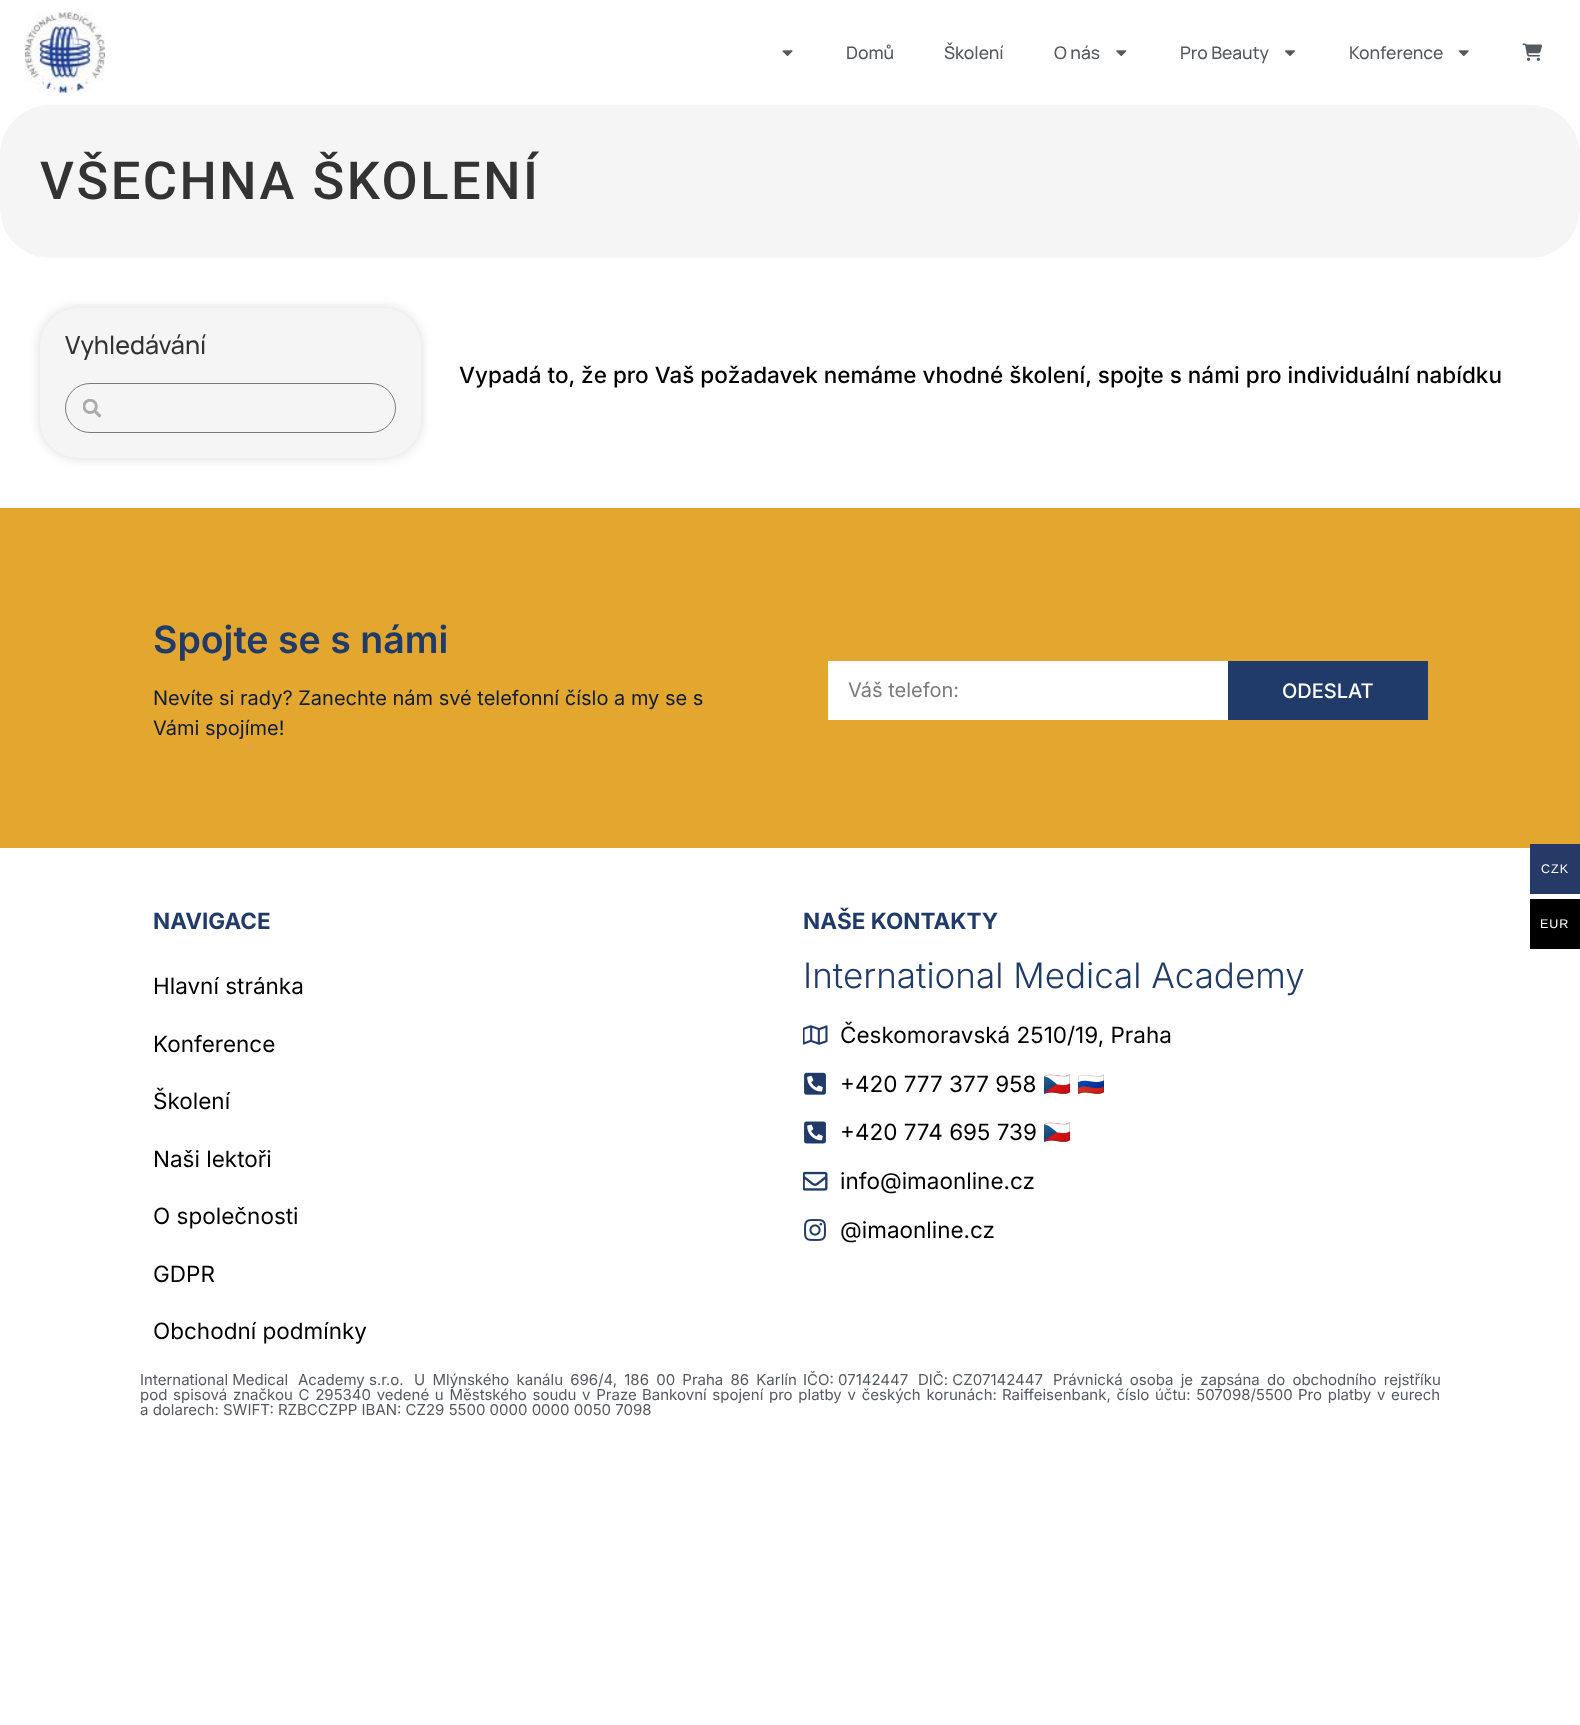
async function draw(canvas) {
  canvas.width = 1580;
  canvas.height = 1725;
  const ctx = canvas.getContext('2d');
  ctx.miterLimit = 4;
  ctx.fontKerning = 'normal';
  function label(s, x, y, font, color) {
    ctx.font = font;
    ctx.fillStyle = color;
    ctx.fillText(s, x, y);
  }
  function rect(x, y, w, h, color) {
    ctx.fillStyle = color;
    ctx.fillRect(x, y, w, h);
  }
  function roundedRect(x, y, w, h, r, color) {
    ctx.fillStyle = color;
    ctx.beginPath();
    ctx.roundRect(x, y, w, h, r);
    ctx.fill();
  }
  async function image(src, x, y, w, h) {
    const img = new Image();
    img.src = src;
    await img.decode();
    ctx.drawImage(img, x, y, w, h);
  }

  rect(0, 0, 1580, 1725, '#fff');
  await image('assets/img1.png', 25, 12, 80, 81);
  await image('assets/img2.png', 782, 50, 11, 6);
  label('Domů', 846, 59, '500 17.5px Manrope', '#54595f');
  label('Školení', 944, 59, '500 17.5px Manrope', '#54595f');
  label('O nás', 1054, 59, '500 17.5px Manrope', '#54595f');
  await image('assets/img3.png', 1116, 50, 11, 6);
  label('Pro Beauty', 1180, 59, '500 17.5px Manrope', '#54595f');
  await image('assets/img4.png', 1285, 50, 10, 6);
  label('Konference', 1349, 59, '500 17.5px Manrope', '#54595f');
  await image('assets/img5.png', 1458, 50, 11, 6);
  await image('assets/img6.png', 1522, 43, 20, 18);
  roundedRect(0, 105, 1580, 153, 50, '#f5f5f5');
  ctx.letterSpacing = '2.5px';
  label('VŠECHNA ŠKOLENÍ', 40, 199, '500 52.5px Roboto', '#333');
  ctx.fillStyle = '#00000026';
  ctx.filter = 'blur(6px)';
  ctx.beginPath();
  ctx.roundRect(40, 308, 381, 150, 38);
  ctx.fill();
  ctx.filter = 'none';
  roundedRect(40, 308, 381, 150, 38, '#f5f5f5');
  ctx.letterSpacing = '0px';
  label('Vyhledávání', 65, 354, '500 25px Manrope', '#333');
  ctx.beginPath();
  ctx.roundRect(65.5, 383.5, 330, 49, 24.5);
  ctx.strokeStyle = '#7a7a7a';
  ctx.stroke();
  await image('assets/img7.png', 83, 399, 18, 19);
  label('Vypadá to, že pro Vaš požadavek nemáme vhodné školení, spojte s námi pro individuální nabídku', 459, 383, '500 22.5px Inter', '#000');
  rect(0, 508, 1580, 340, '#e3a72f');
  label('Spojte se s námi', 153, 653, '600 37.5px Inter', '#203b6a');
  label('Nevíte si rady? Zanechte nám své telefonní číslo a my se s', 153, 705, '20px Inter', '#0e1b31');
  label('Vámi spojíme!', 153, 735, '20px Inter', '#0e1b31');
  rect(828, 661, 400, 59, '#fff');
  label('Váš telefon:', 848, 697, '20px Inter', '#797a7c');
  rect(1228, 661, 200, 59, '#203b6a');
  label('ODESLAT', 1282, 698, '500 20px Inter', '#fff');
  label('NAVIGACE', 153, 929, 'bold 22.5px Inter', '#203b6a');
  label('Hlavní stránka', 153, 994, '22.5px Inter', '#000');
  label('Konference', 153, 1052, '22.5px Inter', '#000');
  label('Školení', 153, 1109, '22.5px Inter', '#000');
  label('Naši lektoři', 153, 1167, '22.5px Inter', '#000');
  label('O společnosti', 153, 1224, '22.5px Inter', '#000');
  label('GDPR', 153, 1282, '22.5px Inter', '#000');
  label('Obchodní podmínky', 153, 1339, '22.5px Inter', '#000');
  label('NAŠE KONTAKTY', 803, 929, 'bold 22.5px Inter', '#203b6a');
  label('International Medical Academy', 803, 988, '300 35px Inter', '#203b6a');
  await image('assets/img8.png', 803, 1025, 25, 20);
  label('Českomoravská 2510/19, Praha', 840, 1043, '22.5px Inter', '#000');
  await image('assets/img9.png', 804, 1072, 22, 23);
  label('+420 777 377 958', 840, 1092, '22.5px Inter', '#000');
  label('🇨🇿', 1043, 1092, '22.5px Noto Color Emoji', '#000');
  label('🇷🇺', 1077, 1092, '22.5px Noto Color Emoji', '#000');
  await image('assets/img10.png', 804, 1121, 22, 23);
  label('+420 774 695 739', 840, 1140, '22.5px Inter', '#000');
  label('🇨🇿', 1043, 1140, '22.5px Noto Color Emoji', '#000');
  await image('assets/img11.png', 803, 1171, 25, 20);
  label('info@imaonline.cz', 840, 1189, '22.5px Inter', '#000');
  await image('assets/img12.png', 804, 1219, 22, 22);
  label('@imaonline.cz', 840, 1238, '22.5px Inter', '#000');
  label('International Medical', 140, 1385, '15px Inter', '#54595f');
  label('Academy s.r.o.', 298, 1385, '15px Inter', '#54595f');
  ctx.wordSpacing = '3px';
  label('U Mlýnského kanálu 696/4, 186 00 Praha 86 Karlín', 414, 1385, '15px Inter', '#54595f');
  ctx.wordSpacing = '0px';
  label('IČO: 07142447', 803, 1385, '15px Inter', '#54595f');
  label('DIČ: CZ07142447', 918, 1385, '15px Inter', '#54595f');
  ctx.wordSpacing = '3px';
  label('Právnická osoba je zapsána do obchodního rejstříku', 1053, 1385, '15px Inter', '#54595f');
  ctx.wordSpacing = '1.5px';
  label('pod spisová značkou C 295340 vedené u Městského soudu v Praze', 140, 1400, '15px Inter', '#54595f');
  label('Bankovní spojení pro platby v českých korunách:', 642, 1400, '15px Inter', '#54595f');
  label('Raiffeisenbank, číslo účtu: 507098/5500', 1002, 1400, '15px Inter', '#54595f');
  label('Pro platby v eurech', 1298, 1400, '15px Inter', '#54595f');
  ctx.wordSpacing = '0px';
  label('a dolarech: SWIFT: RZBCCZPP IBAN: CZ29 5500 0000 0000 0050 7098', 140, 1415, '15px Inter', '#54595f');
  rect(1530, 844, 50, 50, '#263a67');
  ctx.letterSpacing = '1px';
  label('CZK', 1541, 873, '12.5px Liberation Sans', '#fff');
  rect(1530, 899, 50, 50, '#000');
  label('EUR', 1540, 928, '12.5px Liberation Sans', '#fff');
}

draw(document.querySelector('canvas'));
